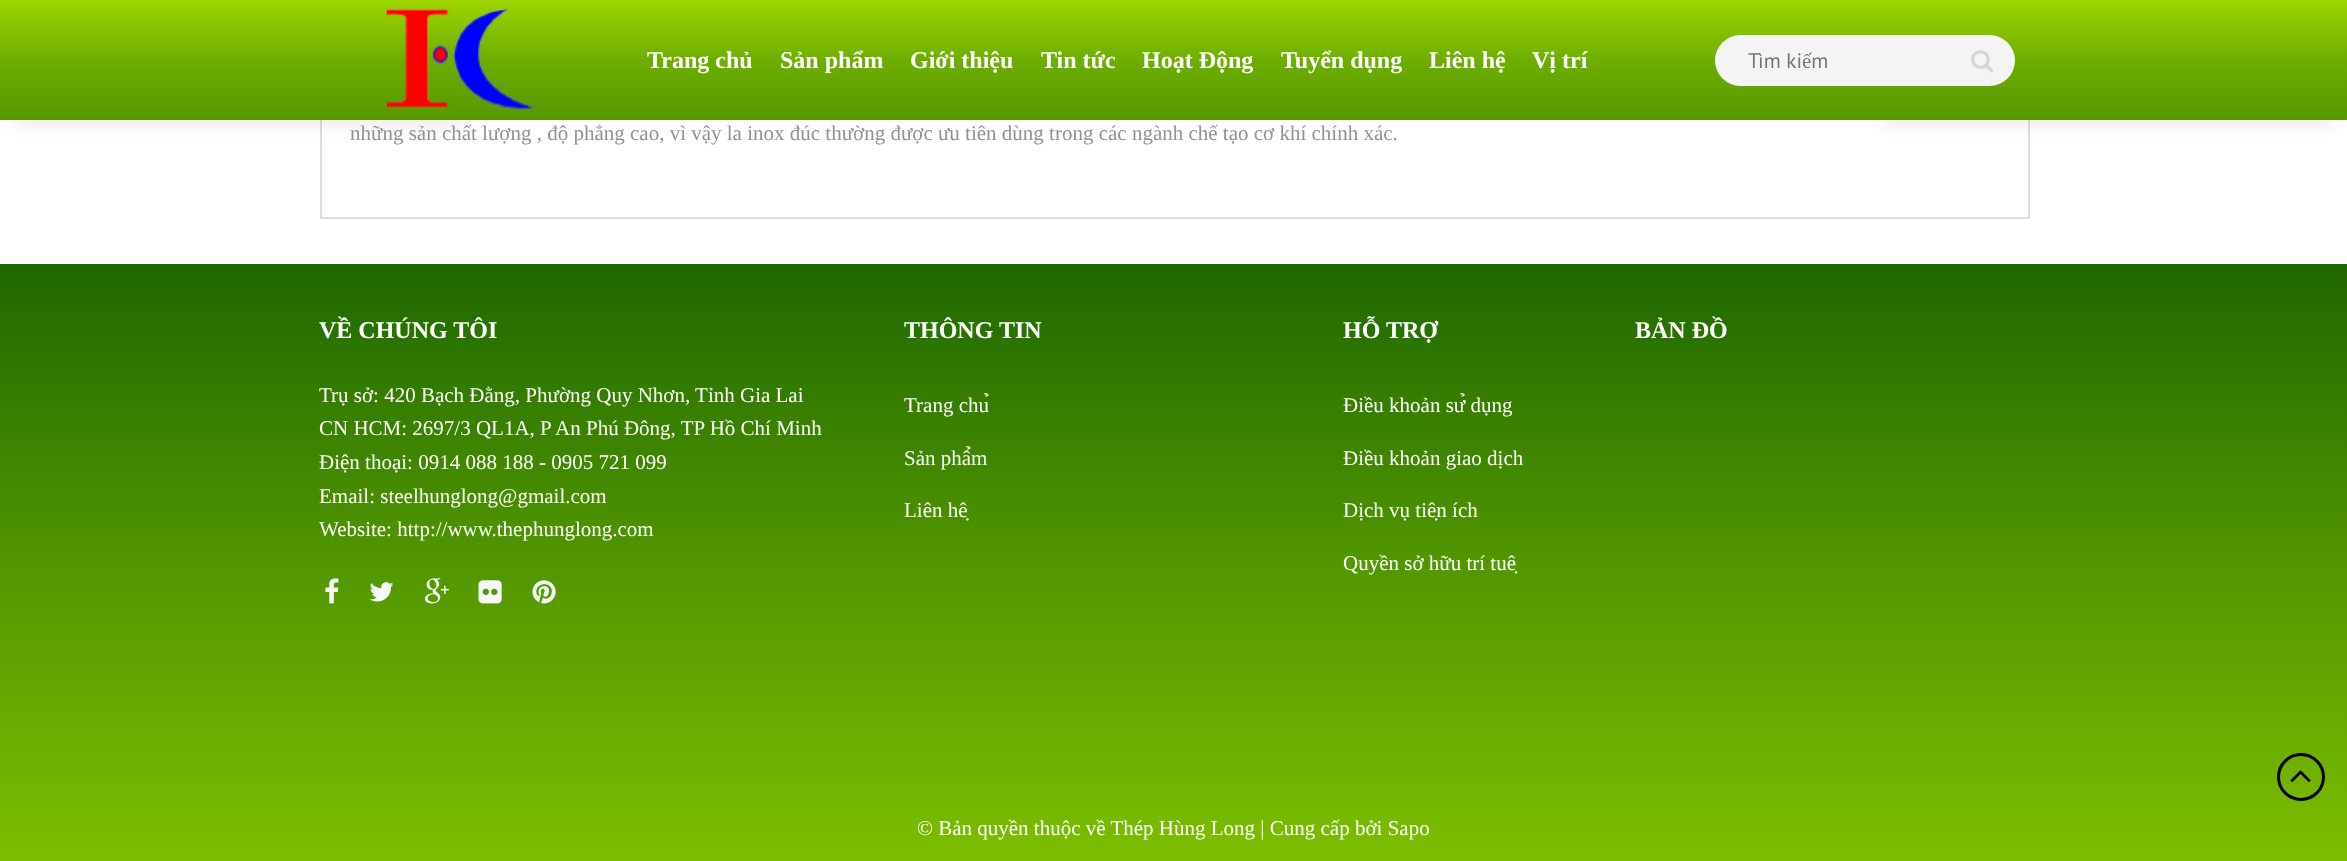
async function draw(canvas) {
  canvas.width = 2347;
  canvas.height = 861;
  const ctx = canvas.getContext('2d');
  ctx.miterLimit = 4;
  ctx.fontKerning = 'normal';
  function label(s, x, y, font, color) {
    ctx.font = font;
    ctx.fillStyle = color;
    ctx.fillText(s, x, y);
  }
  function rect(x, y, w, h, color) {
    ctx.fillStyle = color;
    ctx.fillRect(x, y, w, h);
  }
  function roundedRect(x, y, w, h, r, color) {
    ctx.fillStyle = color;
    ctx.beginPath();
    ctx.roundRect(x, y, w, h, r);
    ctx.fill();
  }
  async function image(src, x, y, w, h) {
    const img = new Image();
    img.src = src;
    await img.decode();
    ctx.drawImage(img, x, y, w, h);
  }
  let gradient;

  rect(0, 0, 2347, 861, '#fff');
  ctx.strokeStyle = '#ddd';
  ctx.lineWidth = 2;
  ctx.strokeRect(321, -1, 1708, 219);
  ctx.fillStyle = '#00000080';
  ctx.filter = 'blur(7.5px)';
  ctx.beginPath();
  ctx.rect(15, 119, 450, 2);
  ctx.fill();
  ctx.filter = 'none';
  ctx.filter = 'blur(7.5px)';
  ctx.beginPath();
  ctx.rect(1883, 119, 450, 2);
  ctx.fill();
  ctx.filter = 'none';
  gradient = ctx.createLinearGradient(1174, 0, 1174, 120);
  gradient.addColorStop(0, '#9ed500');
  gradient.addColorStop(0.5, '#6eae00');
  gradient.addColorStop(1, '#569800');
  ctx.fillStyle = gradient;
  ctx.fillRect(0, 0, 2347, 120);
  await image('assets/img1.png', 385, 8, 149, 103);
  label('Trang chủ', 647, 68, 'bold 24px Liberation Serif', '#fff');
  label('Sản phẩm', 780, 68, 'bold 24px Liberation Serif', '#fff');
  label('Giới thiệu', 910, 68, 'bold 24px Liberation Serif', '#fff');
  label('Tin tức', 1041, 68, 'bold 24px Liberation Serif', '#fff');
  label('Hoạt Động', 1142, 68, 'bold 24px Liberation Serif', '#fff');
  label('Tuyển dụng', 1281, 68, 'bold 24px Liberation Serif', '#fff');
  label('Liên hệ', 1429, 68, 'bold 24px Liberation Serif', '#fff');
  label('Vị trí', 1532, 68, 'bold 24px Liberation Serif', '#fff');
  roundedRect(1715, 35, 300, 51, 25.5, '#f4f4f4');
  label('Tìm kiếm', 1748, 68, '21px PT Sans', '#757575');
  await image('assets/img2.png', 1971, 50, 23, 23);
  label('những sản chất lượng , độ phẳng cao, vì vậy la inox đúc thường được ưu tiên dùng trong các ngành chế tạo cơ khí chính xác.', 350, 140, '21px Liberation Serif', '#929292');
  gradient = ctx.createLinearGradient(1174, 264, 1174, 861);
  gradient.addColorStop(0, '#1e6700');
  gradient.addColorStop(0.5, '#529601');
  gradient.addColorStop(1, '#7dbe00');
  ctx.fillStyle = gradient;
  ctx.fillRect(0, 264, 2347, 597);
  label('VỀ CHÚNG TÔI', 319, 338, 'bold 24px Liberation Serif', '#fff');
  label('Trụ sở: 420 Bạch Đằng, Phường Quy Nhơn, Tỉnh Gia Lai', 319, 402, '21px Liberation Serif', '#fff');
  label('CN HCM: 2697/3 QL1A, P An Phú Đông, TP Hồ Chí Minh', 319, 435, '21px Liberation Serif', '#fff');
  label('Điện thoại: 0914 088 188 - 0905 721 099', 319, 469, '21px Liberation Serif', '#fff');
  label('Email: steelhunglong@gmail.com', 319, 503, '21px Liberation Serif', '#fff');
  label('Website: http://www.thephunglong.com', 319, 536, '21px Liberation Serif', '#fff');
  await image('assets/img3.png', 325, 578, 14, 26);
  await image('assets/img4.png', 369, 582, 25, 20);
  await image('assets/img5.png', 425, 578, 24, 26);
  await image('assets/img6.png', 478, 580, 24, 24);
  await image('assets/img7.png', 532, 580, 24, 24);
  label('THÔNG TIN', 904, 338, 'bold 24px Liberation Serif', '#fff');
  label('Trang chủ', 904, 412, '21px Liberation Serif', '#fff');
  label('Sản phẩm', 904, 465, '21px Liberation Serif', '#fff');
  label('Liên hệ', 904, 517, '21px Liberation Serif', '#fff');
  label('HỖ TRỢ', 1343, 338, 'bold 24px Liberation Serif', '#fff');
  label('Điều khoản sử dụng', 1343, 412, '21px Liberation Serif', '#fff');
  label('Điều khoản giao dịch', 1343, 465, '21px Liberation Serif', '#fff');
  label('Dịch vụ tiện ích', 1343, 517, '21px Liberation Serif', '#fff');
  label('Quyền sở hữu trí tuệ', 1343, 570, '21px Liberation Serif', '#fff');
  label('BẢN ĐỒ', 1635, 338, 'bold 24px Liberation Serif', '#fff');
  label('© Bản quyền thuộc về Thép Hùng Long | Cung cấp bởi Sapo', 917, 835, '21px Liberation Serif', '#fff');
  ctx.beginPath();
  ctx.arc(2301, 777, 22.5, 0, 2 * Math.PI);
  ctx.strokeStyle = '#000';
  ctx.lineWidth = 3;
  ctx.stroke();
  await image('assets/img8.png', 2290, 770, 21, 12);
}

draw(document.querySelector('canvas'));
